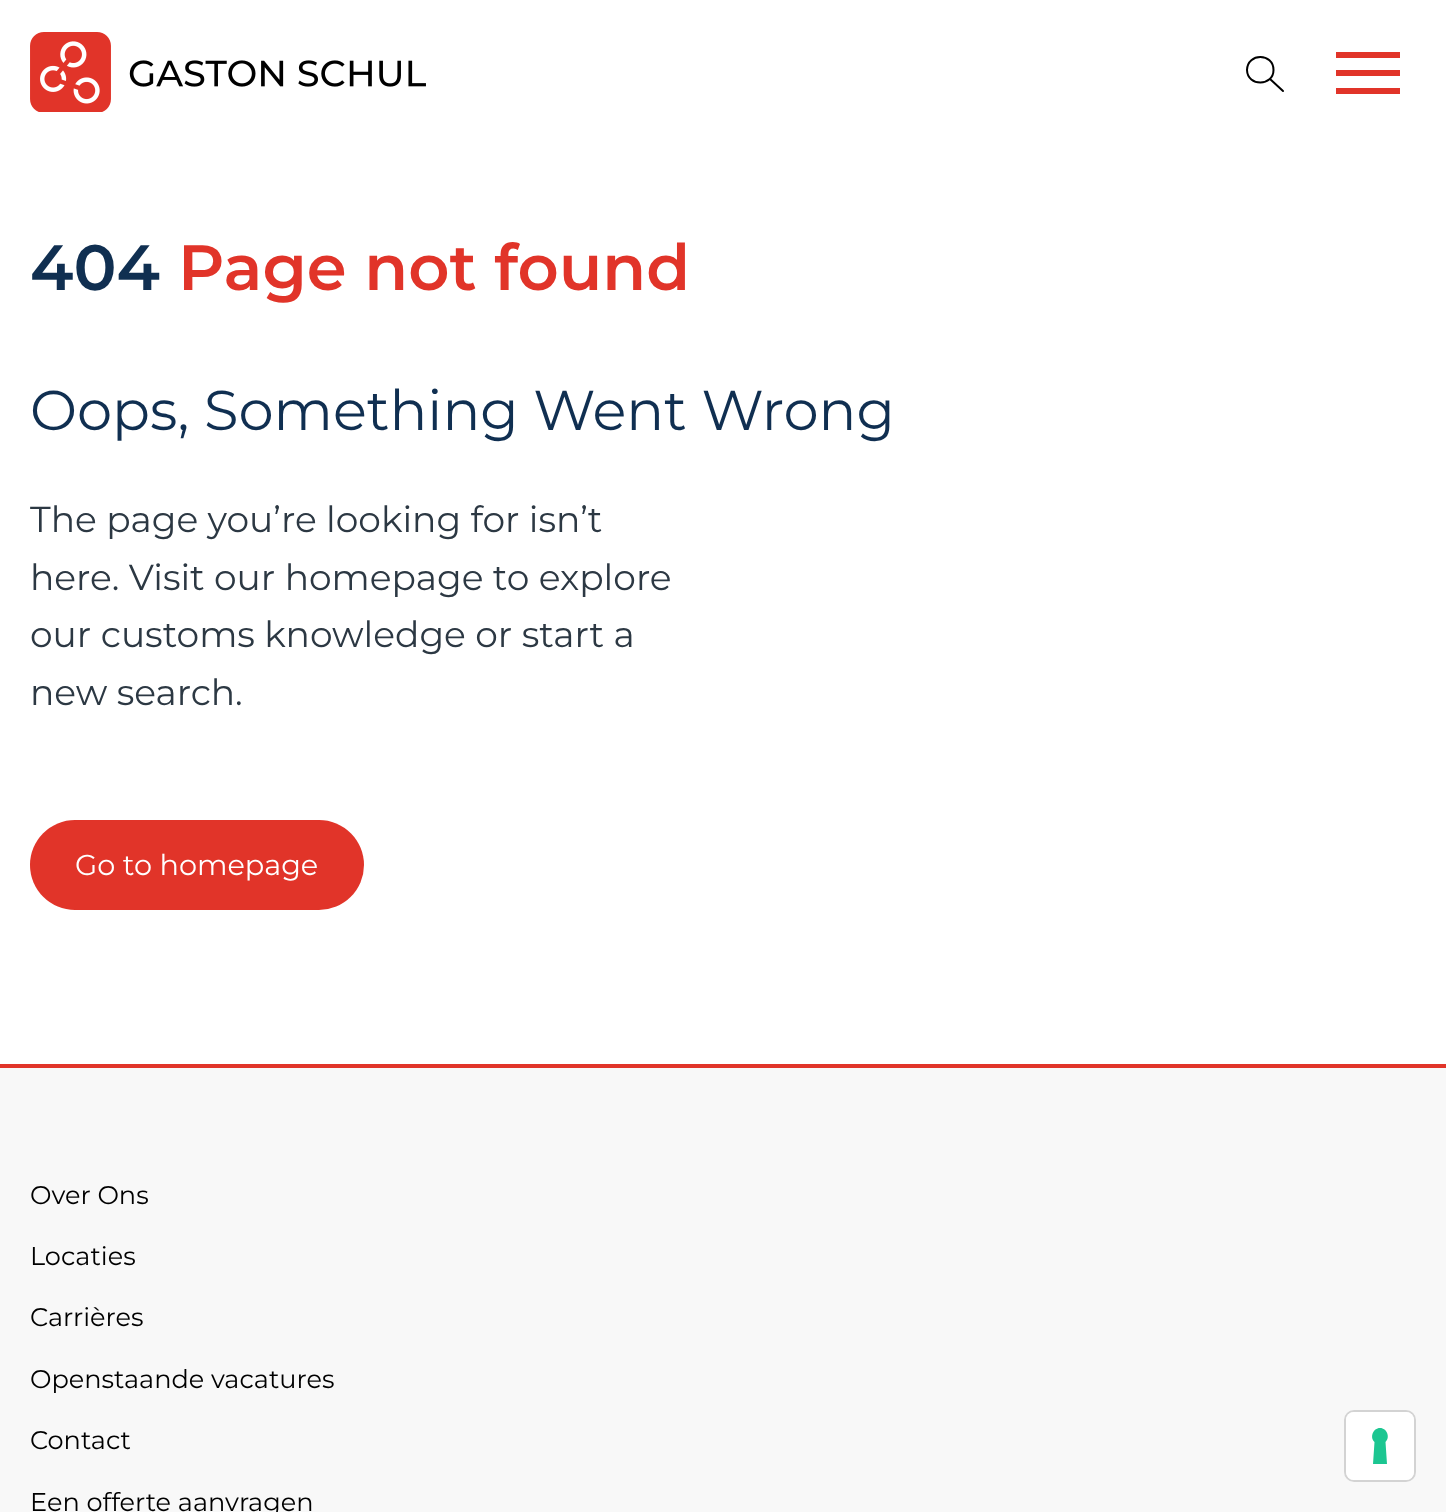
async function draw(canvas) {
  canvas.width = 1446;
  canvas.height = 1512;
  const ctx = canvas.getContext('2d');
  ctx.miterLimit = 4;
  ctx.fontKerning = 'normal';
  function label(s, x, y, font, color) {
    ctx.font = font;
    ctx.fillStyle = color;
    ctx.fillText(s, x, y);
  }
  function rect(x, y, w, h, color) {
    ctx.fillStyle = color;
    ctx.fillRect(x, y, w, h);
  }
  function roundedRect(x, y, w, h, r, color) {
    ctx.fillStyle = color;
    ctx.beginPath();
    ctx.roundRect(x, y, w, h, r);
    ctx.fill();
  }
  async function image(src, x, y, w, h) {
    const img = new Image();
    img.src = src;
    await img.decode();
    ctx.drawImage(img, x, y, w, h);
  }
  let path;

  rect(0, 0, 1446, 1512, '#fff');
  await image('assets/img1.png', 30, 32, 396, 80);
  path = new Path2D('M1270 79L1283 91ZM1247 70C1247.5 52.5 1273.5 53 1273.5 70C1273.5 86.5 1247.5 87 1247 70Z');
  ctx.strokeStyle = '#000';
  ctx.lineWidth = 2;
  ctx.lineCap = 'round';
  ctx.lineJoin = 'round';
  ctx.stroke(path);
  rect(1336, 52, 64, 6, '#e13429');
  rect(1336, 70, 64, 6, '#e13429');
  rect(1336, 88, 64, 6, '#e13429');
  label('404', 30, 290, '600 64px Montserrat', '#102f51');
  label('Page not found', 178, 290, '600 64px Montserrat', '#e13429');
  label('Oops, Something Went Wrong', 30, 430, '56px Montserrat', '#102f51');
  label('The page you’re looking for isn’t', 30, 532, '36px Montserrat', '#2c3843');
  label('here. Visit our homepage to explore', 30, 590, '36px Montserrat', '#2c3843');
  label('our customs knowledge or start a', 30, 647, '36px Montserrat', '#2c3843');
  label('new search.', 30, 705, '36px Montserrat', '#2c3843');
  roundedRect(30, 820, 334, 90, 45, '#e13429');
  label('Go to homepage', 75, 875, '28.75px Montserrat', '#fff');
  rect(0, 1064, 1446, 4, '#e13429');
  rect(0, 1068, 1446, 444, '#f8f8f8');
  label('Over Ons', 30, 1204, '25.6px Montserrat', '#000');
  label('Locaties', 30, 1265, '25.6px Montserrat', '#000');
  label('Carrières', 30, 1326, '25.6px Montserrat', '#000');
  label('Openstaande vacatures', 30, 1388, '25.6px Montserrat', '#000');
  label('Contact', 30, 1449, '25.6px Montserrat', '#000');
  label('Een offerte aanvragen', 30, 1511, '25.6px Montserrat', '#000');
  ctx.beginPath();
  ctx.roundRect(1345, 1411, 70, 70, 9);
  ctx.strokeStyle = '#d3d3d3';
  ctx.lineJoin = 'miter';
  ctx.stroke();
  roundedRect(1346, 1412, 68, 68, 8, '#fff');
  ctx.fillStyle = '#1cc691';
  path = new Path2D('M1380 1428C1387 1428 1390.5 1437.5 1385.5 1442L1387 1464H1373L1374.5 1442C1369.5 1437.5 1373 1428 1380 1428Z');
  ctx.fill(path, 'evenodd');
}

draw(document.querySelector('canvas'));
